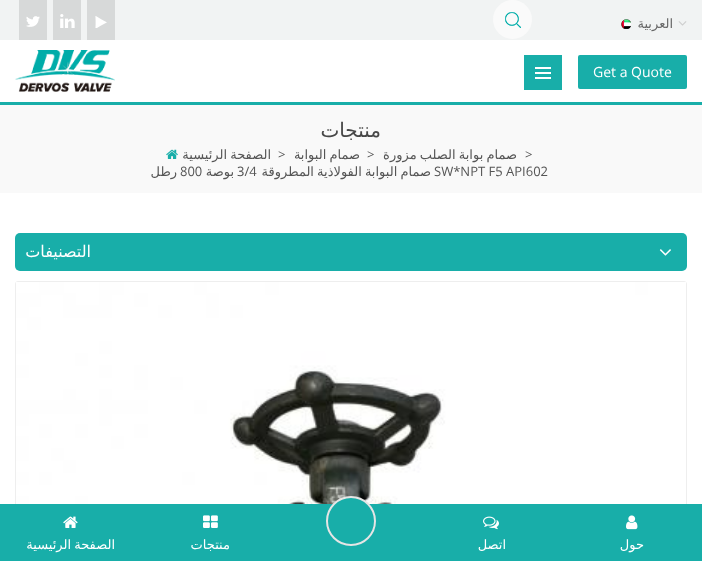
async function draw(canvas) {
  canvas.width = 702;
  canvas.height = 561;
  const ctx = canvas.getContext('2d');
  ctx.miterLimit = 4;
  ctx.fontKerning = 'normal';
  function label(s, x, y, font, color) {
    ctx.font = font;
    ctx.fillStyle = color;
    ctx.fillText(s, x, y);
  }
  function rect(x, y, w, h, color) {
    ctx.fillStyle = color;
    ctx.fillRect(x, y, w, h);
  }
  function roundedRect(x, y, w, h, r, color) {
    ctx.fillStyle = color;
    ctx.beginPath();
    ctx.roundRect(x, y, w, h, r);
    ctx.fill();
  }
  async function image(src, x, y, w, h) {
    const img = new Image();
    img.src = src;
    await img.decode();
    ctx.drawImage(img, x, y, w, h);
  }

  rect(0, 0, 702, 561, '#fff');
  rect(0, 0, 702, 40, '#f1f3f3');
  await image('assets/img1.png', 678, 21, 9, 5);
  ctx.direction = 'rtl';
  label('العربية', 673, 28, '13px DejaVu Sans', '#666');
  await image('assets/img2.png', 621, 19, 10, 10);
  ctx.fillStyle = '#fafafa';
  ctx.beginPath();
  ctx.arc(512.5, 19.5, 19.5, 0, 2 * Math.PI);
  ctx.fill();
  await image('assets/img3.png', 505, 12, 16, 16);
  rect(87, 0, 28, 40, '#d7d9d9');
  await image('assets/img4.png', 95, 16, 12, 12);
  rect(53, 0, 28, 40, '#d7d9d9');
  await image('assets/img5.png', 60, 14, 15, 14);
  rect(19, 0, 28, 40, '#d7d9d9');
  await image('assets/img6.png', 26, 16, 14, 11);
  rect(0, 102, 702, 3, '#18aea9');
  roundedRect(578, 55, 109, 34, 2, '#18aea9');
  ctx.direction = 'ltr';
  label('Get a Quote', 593, 77, '14px Open Sans', '#fff');
  rect(524, 55, 38, 35, '#18aea9');
  rect(535, 67, 16, 2, '#fff');
  rect(535, 72, 16, 2, '#fff');
  rect(535, 77, 16, 2, '#fff');
  await image('assets/img7.png', 15, 50, 100, 42);
  rect(0, 105, 702, 88, '#f9f9f9');
  ctx.direction = 'rtl';
  label('منتجات', 381, 137, '20px DejaVu Sans', '#474747');
  ctx.direction = 'ltr';
  label('>', 525, 159, '13px Open Sans', '#555');
  ctx.wordSpacing = '-1px';
  ctx.direction = 'rtl';
  label('صمام بوابة الصلب مزورة', 517, 159, '13px DejaVu Sans', '#555');
  ctx.wordSpacing = '0px';
  ctx.direction = 'ltr';
  label('>', 367, 159, '13px Open Sans', '#555');
  ctx.wordSpacing = '-1px';
  ctx.direction = 'rtl';
  label('صمام البوابة', 360, 159, '13px DejaVu Sans', '#555');
  ctx.wordSpacing = '0px';
  ctx.direction = 'ltr';
  label('>', 278, 159, '13px Open Sans', '#555');
  ctx.wordSpacing = '-1px';
  ctx.direction = 'rtl';
  label('الصفحة الرئيسية', 271, 159, '13px DejaVu Sans', '#555');
  await image('assets/img8.png', 166, 149, 12, 10);
  ctx.wordSpacing = '0px';
  ctx.direction = 'ltr';
  label('SW*NPT F5 API602', 434, 176, '13px Open Sans', '#555');
  ctx.wordSpacing = '-1px';
  ctx.direction = 'rtl';
  label('صمام البوابة الفولاذية المطروقة', 431, 176, '13px DejaVu Sans', '#555');
  ctx.wordSpacing = '0px';
  ctx.direction = 'ltr';
  label('3/4', 237, 176, '13px Open Sans', '#555');
  ctx.direction = 'rtl';
  label('بوصة', 234, 176, '13px DejaVu Sans', '#555');
  ctx.direction = 'ltr';
  label('800', 180, 176, '13px Open Sans', '#555');
  ctx.direction = 'rtl';
  label('رطل', 177, 176, '13px DejaVu Sans', '#555');
  roundedRect(15, 233, 672, 38, 5, '#18aea9');
  await image('assets/img9.png', 659, 249, 12, 7);
  label('التصنيفات', 91, 257, '16px DejaVu Sans', '#fff');
  ctx.beginPath();
  ctx.roundRect(15.5, 281.5, 671, 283, 2.5);
  ctx.strokeStyle = '#eee';
  ctx.stroke();
  await image('assets/img10.png', 16, 282, 670, 222);
  rect(0, 504, 702, 57, '#18aea9');
  ctx.beginPath();
  ctx.arc(351, 521, 24, 0, 2 * Math.PI);
  ctx.fill();
  ctx.strokeStyle = '#e5e5e5';
  ctx.lineWidth = 2;
  ctx.stroke();
  await image('assets/img11.png', 626, 515, 12, 15);
  label('حول', 644, 549, '13px DejaVu Sans', '#fff');
  await image('assets/img12.png', 483, 516, 16, 14);
  label('اتصل', 506, 549, '13px DejaVu Sans', '#fff');
  await image('assets/img13.png', 203, 515, 15, 13);
  label('منتجات', 230, 549, '13px DejaVu Sans', '#fff');
  await image('assets/img14.png', 63, 516, 15, 12);
  ctx.wordSpacing = '-1px';
  label('الصفحة الرئيسية', 115, 549, '13px DejaVu Sans', '#fff');
}

draw(document.querySelector('canvas'));
